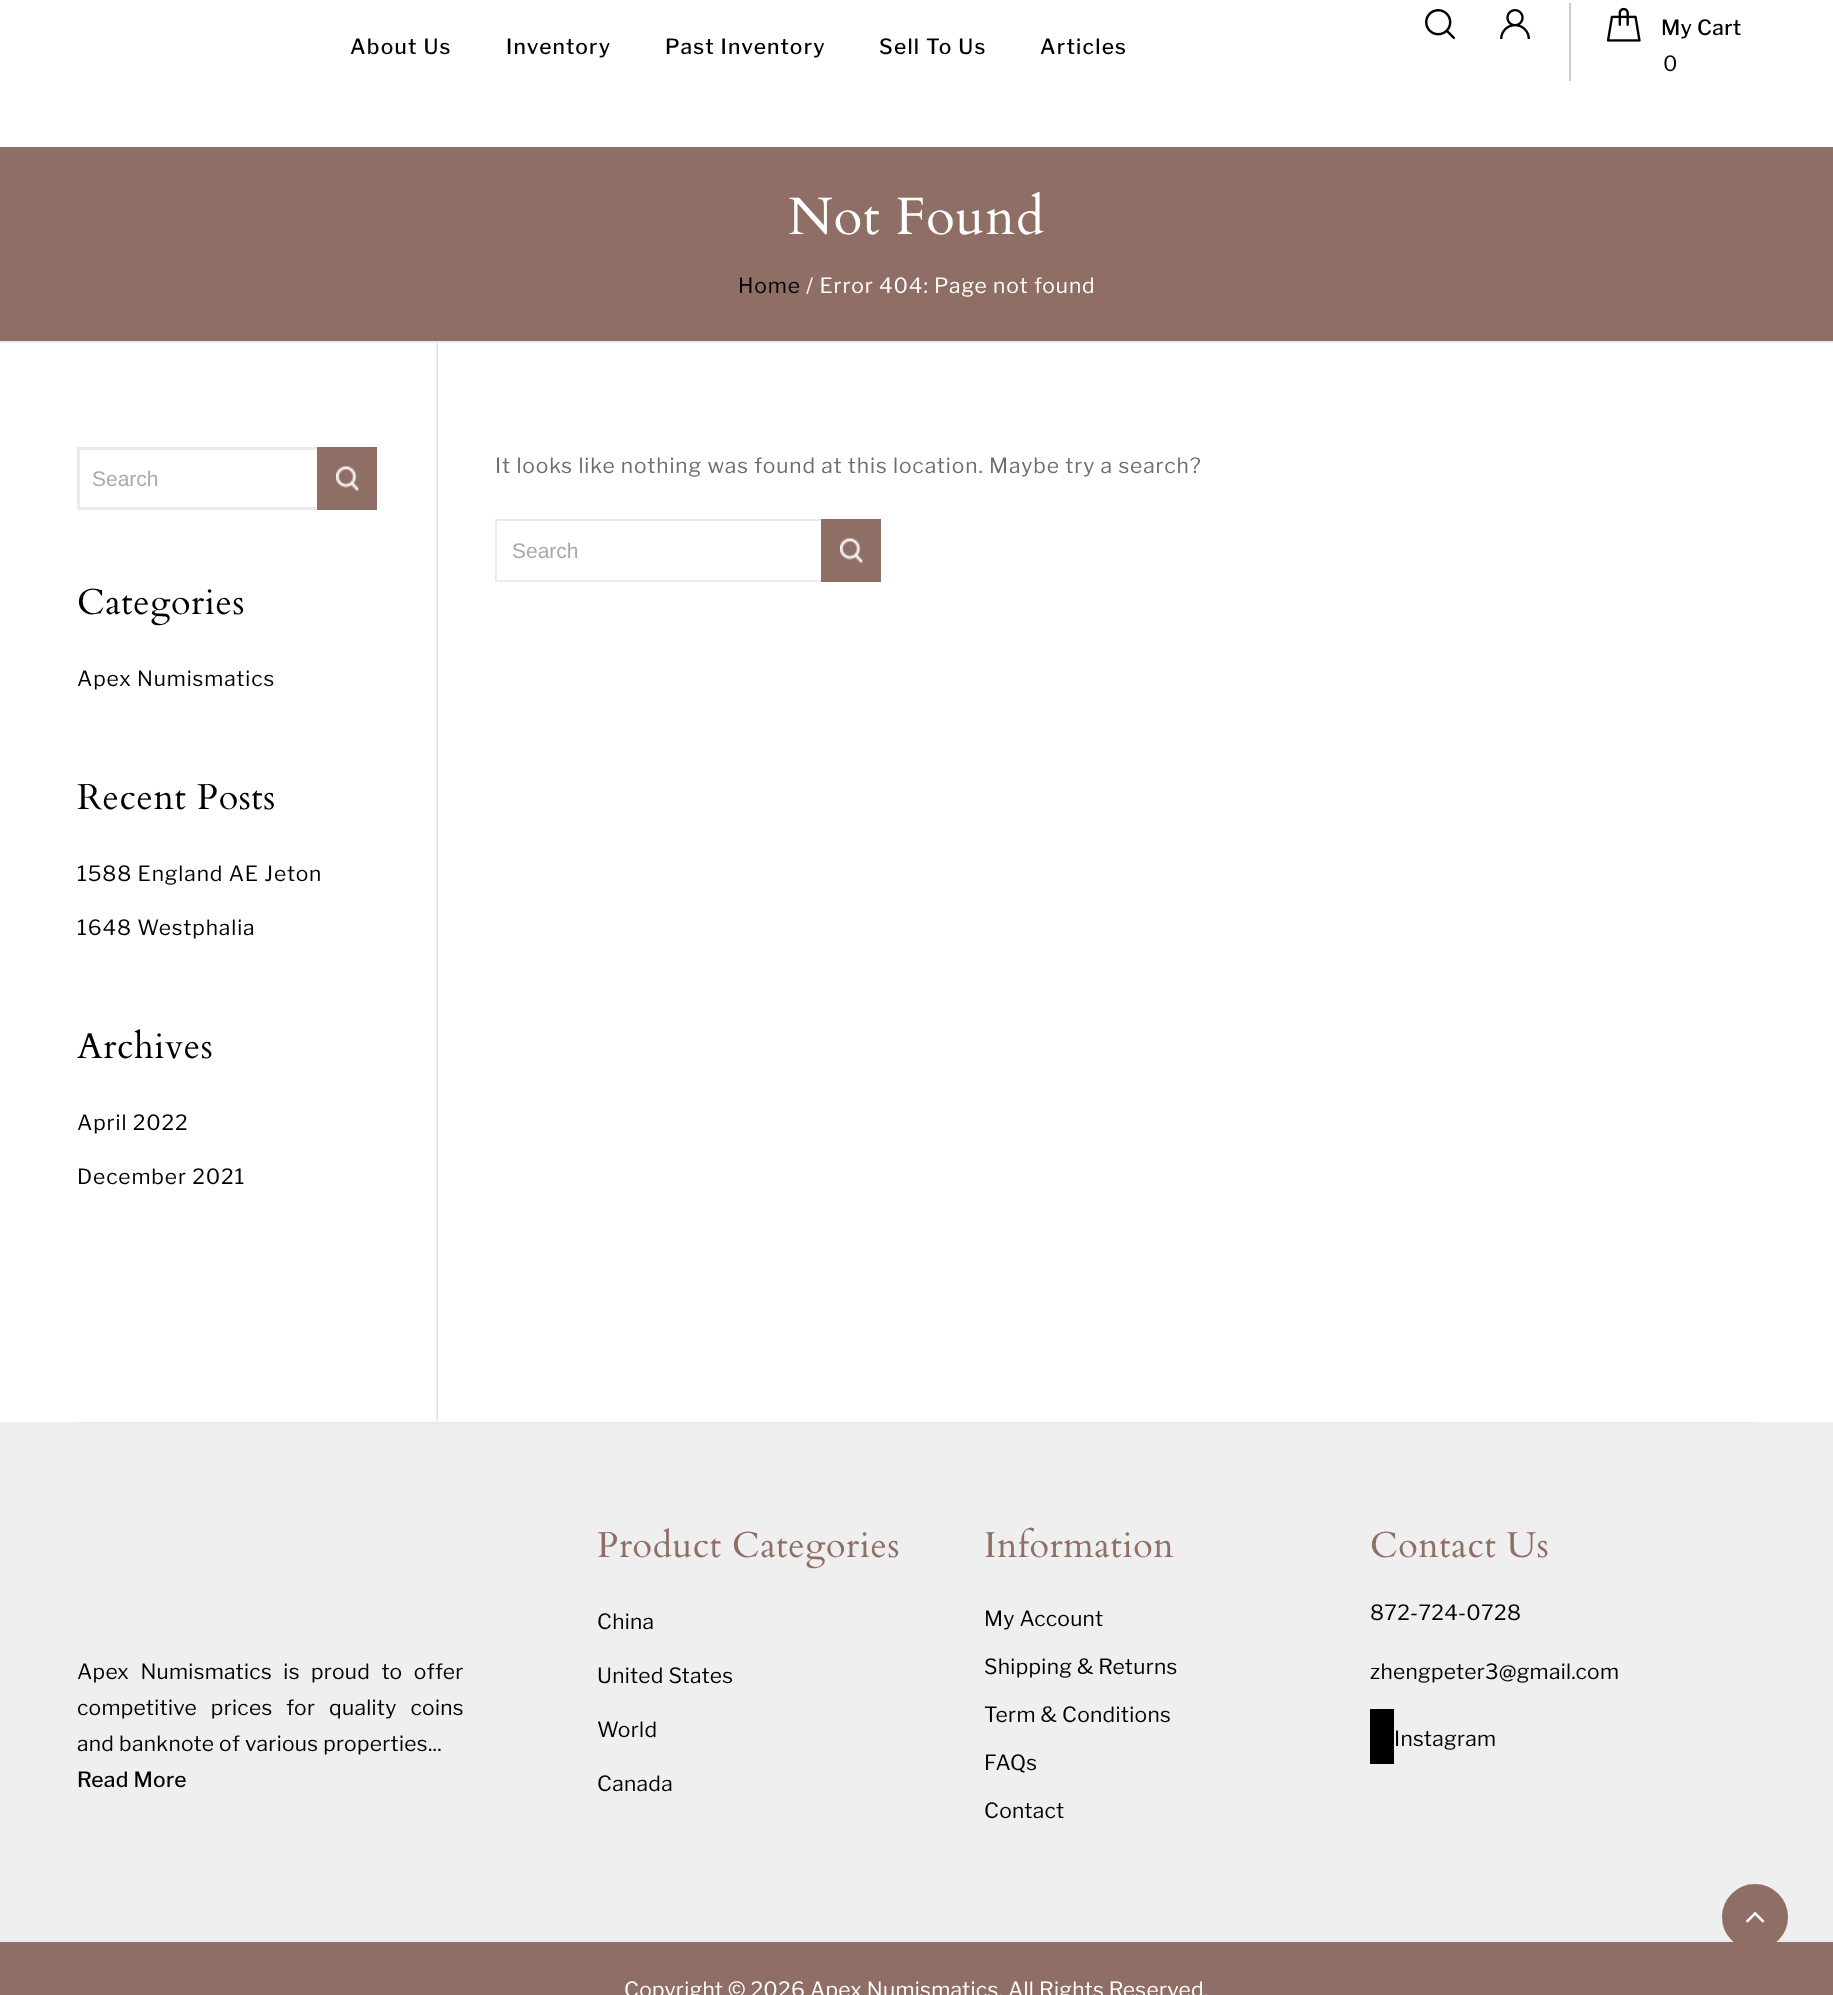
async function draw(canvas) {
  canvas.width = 1833;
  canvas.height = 1995;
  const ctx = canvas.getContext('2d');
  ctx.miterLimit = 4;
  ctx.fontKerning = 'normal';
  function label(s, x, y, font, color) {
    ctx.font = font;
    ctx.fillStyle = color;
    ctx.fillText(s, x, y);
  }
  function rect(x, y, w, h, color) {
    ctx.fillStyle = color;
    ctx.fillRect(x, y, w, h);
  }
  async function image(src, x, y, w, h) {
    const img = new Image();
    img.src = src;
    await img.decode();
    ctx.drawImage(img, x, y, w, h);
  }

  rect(0, 0, 1833, 1995, '#fff');
  ctx.letterSpacing = '1.25px';
  label('About Us', 350, 54, '500 21px Libre Franklin', '#000');
  label('Inventory', 506, 54, '500 21px Libre Franklin', '#000');
  label('Past Inventory', 665, 54, '500 21px Libre Franklin', '#000');
  label('Sell To Us', 879, 54, '500 21px Libre Franklin', '#000');
  label('Articles', 1040, 54, '500 21px Libre Franklin', '#000');
  await image('assets/img1.png', 1425, 9, 30, 30);
  await image('assets/img2.png', 1500, 9, 30, 30);
  rect(1569, 3, 2, 78, '#ccc');
  await image('assets/img3.png', 1606, 7, 35, 35);
  ctx.letterSpacing = '0.3px';
  label('My Cart', 1661, 35, '500 21px Libre Franklin', '#000');
  ctx.letterSpacing = '0.9px';
  label('0', 1663, 71, '100 21px Libre Franklin', '#000');
  rect(0, 147, 1833, 194, '#8e6e65');
  rect(0, 341, 1833, 2, '#ebebeb');
  label('Not Found', 788, 234, '52.5px Cardo', '#fff');
  label('Home', 738, 293, '100 21px Libre Franklin', '#000');
  label('/ Error 404: Page not found', 806, 293, '100 21px Libre Franklin', '#fff');
  await image('assets/img4.png', 436, 342, 2, 1080);
  ctx.strokeStyle = '#ebebeb';
  ctx.lineWidth = 3;
  ctx.strokeRect(78.5, 448.5, 255, 60);
  ctx.letterSpacing = '0px';
  label('Search', 92, 486, '21px Liberation Sans', '#aaa');
  rect(317, 447, 60, 63, '#8e6e65');
  await image('assets/img5.png', 336, 466, 23, 25);
  ctx.letterSpacing = '0.6px';
  label('Categories', 77, 614, '36px Cardo', '#000');
  ctx.letterSpacing = '0.9px';
  label('Apex Numismatics', 77, 686, '100 21px Libre Franklin', '#000');
  ctx.letterSpacing = '0.6px';
  label('Recent Posts', 77, 809, '36px Cardo', '#000');
  ctx.letterSpacing = '0.9px';
  label('1588 England AE Jeton', 77, 881, '100 21px Libre Franklin', '#000');
  label('1648 Westphalia', 77, 935, '100 21px Libre Franklin', '#000');
  ctx.letterSpacing = '0.6px';
  label('Archives', 77, 1058, '36px Cardo', '#000');
  ctx.letterSpacing = '0.9px';
  label('April 2022', 77, 1130, '100 21px Libre Franklin', '#000');
  label('December 2021', 77, 1184, '100 21px Libre Franklin', '#000');
  label('It looks like nothing was found at this location. Maybe try a search?', 495, 473, '100 21px Libre Franklin', '#6e6e6e');
  ctx.lineWidth = 2;
  ctx.strokeRect(496, 520, 327, 61);
  ctx.letterSpacing = '0px';
  label('Search', 512, 558, '21px Liberation Sans', '#aaa');
  rect(821, 519, 60, 63, '#8e6e65');
  await image('assets/img6.png', 840, 538, 23, 25);
  rect(0, 1422, 1833, 518, '#efefef');
  rect(77, 1422, 1680, 2, '#ebebeb');
  ctx.letterSpacing = '0.3px';
  ctx.wordSpacing = '6.5px';
  label('Apex Numismatics is proud to offer', 77, 1679, '100 21px Libre Franklin', '#000');
  ctx.wordSpacing = '9px';
  label('competitive prices for quality coins', 77, 1715, '100 21px Libre Franklin', '#000');
  ctx.wordSpacing = '0px';
  label('and banknote of various properties...', 77, 1751, '100 21px Libre Franklin', '#000');
  label('Read More', 77, 1787, '500 21px Libre Franklin', '#000');
  ctx.letterSpacing = '0.6px';
  label('Product Categories', 597, 1557, '36px Cardo', '#8e6e65');
  ctx.letterSpacing = '0.3px';
  label('China', 597, 1629, '100 21px Libre Franklin', '#000');
  label('United States', 597, 1683, '100 21px Libre Franklin', '#000');
  label('World', 597, 1737, '100 21px Libre Franklin', '#000');
  label('Canada', 597, 1791, '100 21px Libre Franklin', '#000');
  ctx.letterSpacing = '0.6px';
  label('Information', 984, 1557, '36px Cardo', '#8e6e65');
  ctx.letterSpacing = '0.3px';
  label('My Account', 984, 1626, '100 21px Libre Franklin', '#000');
  label('Shipping & Returns', 984, 1674, '100 21px Libre Franklin', '#000');
  label('Term & Conditions', 984, 1722, '100 21px Libre Franklin', '#000');
  label('FAQs', 984, 1770, '100 21px Libre Franklin', '#000');
  label('Contact', 984, 1818, '100 21px Libre Franklin', '#000');
  ctx.letterSpacing = '0.6px';
  label('Contact Us', 1370, 1557, '36px Cardo', '#8e6e65');
  ctx.letterSpacing = '0.3px';
  label('872-724-0728', 1370, 1620, '100 21px Libre Franklin', '#000');
  label('zhengpeter3@gmail.com', 1370, 1679, '100 21px Libre Franklin', '#000');
  label('Instagram', 1394, 1746, '100 21px Libre Franklin', '#000');
  rect(1370, 1709, 24, 55, '#000');
  rect(0, 1942, 1833, 53, '#8e6e65');
  rect(0, 1940, 1833, 2, '#ebebeb');
  label('Copyright © 2026 Apex Numismatics. All Rights Reserved.', 624, 1997, '100 21px Libre Franklin', '#fff');
  ctx.fillStyle = '#8e6e65';
  ctx.beginPath();
  ctx.arc(1755, 1917, 31.5, 0, 2 * Math.PI);
  ctx.fill();
  ctx.strokeStyle = '#8e6e65';
  ctx.lineWidth = 3;
  ctx.stroke();
  await image('assets/img7.png', 1746, 1911, 19, 12);
}

draw(document.querySelector('canvas'));
